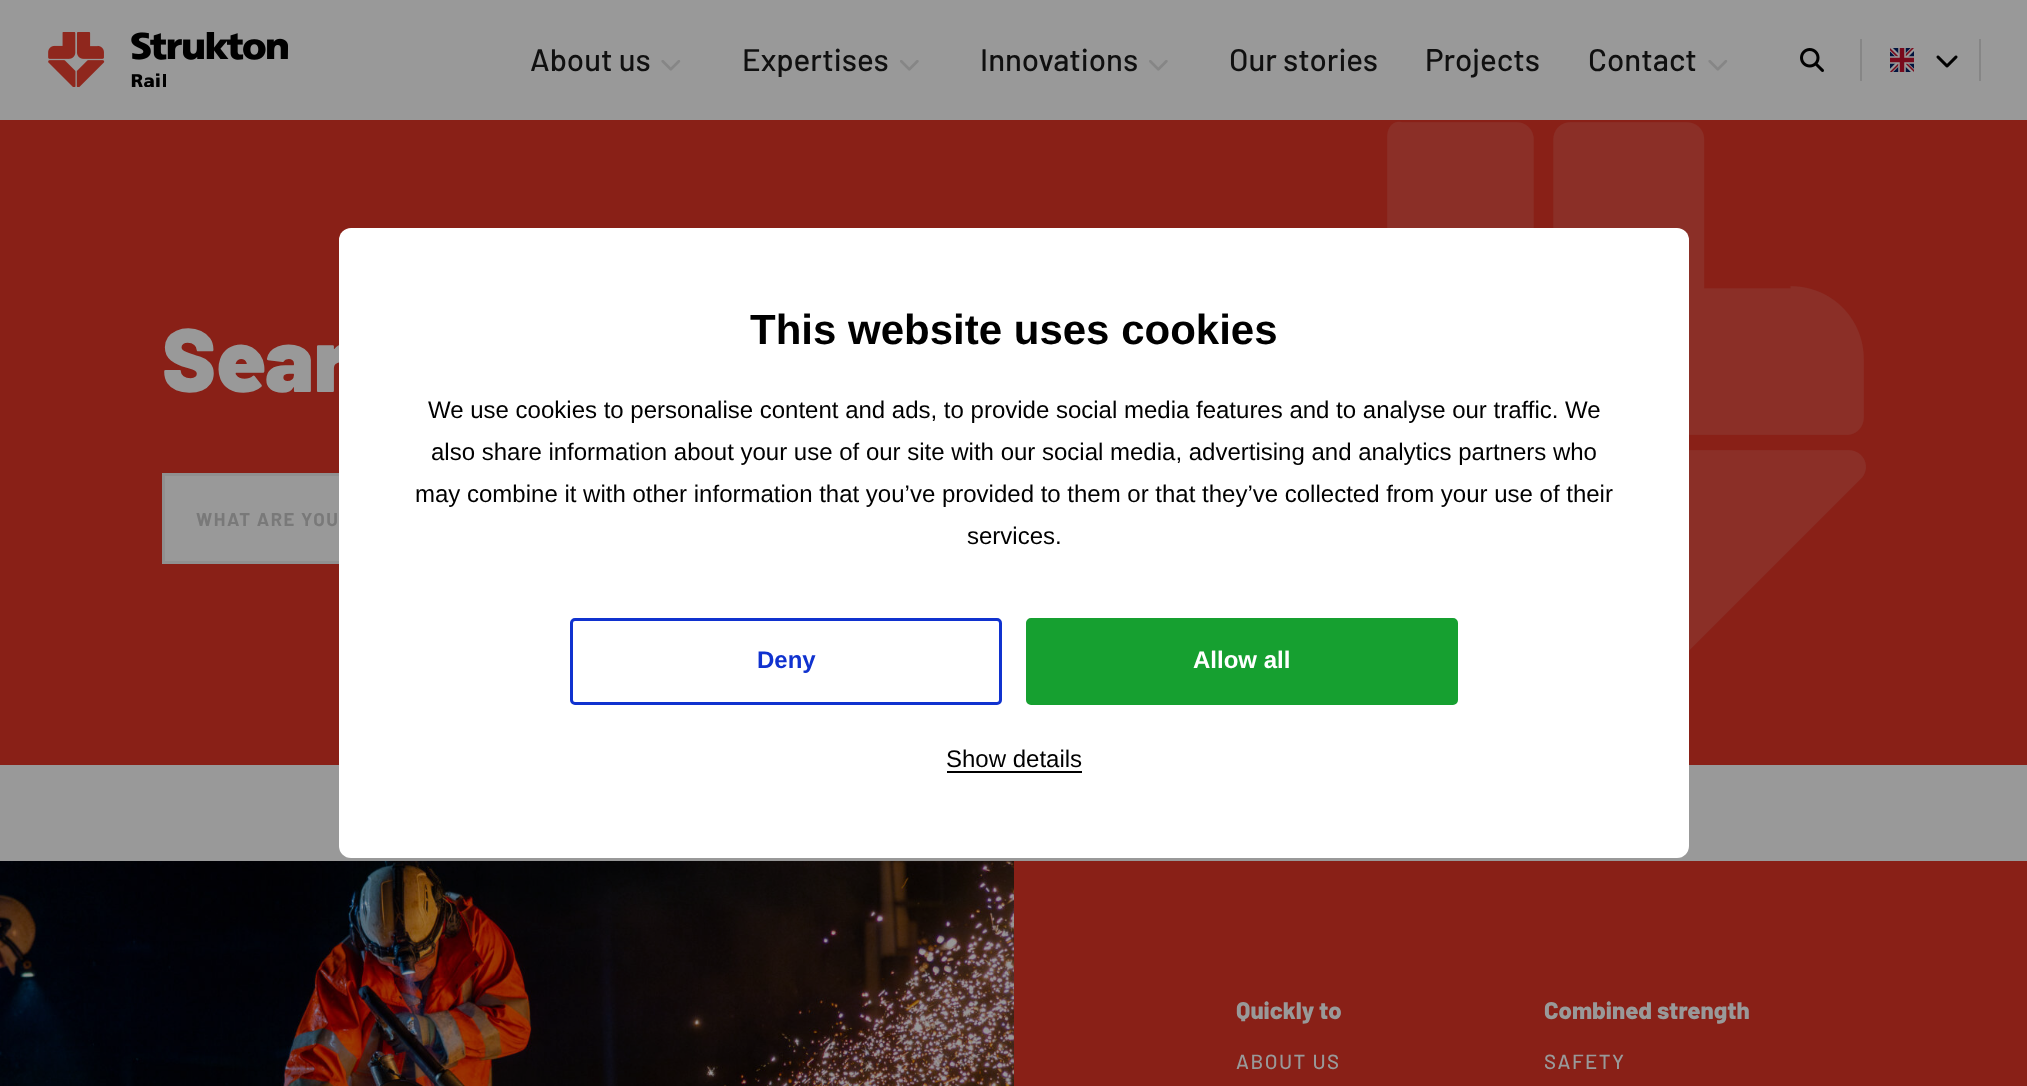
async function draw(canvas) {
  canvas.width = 2027;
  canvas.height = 1086;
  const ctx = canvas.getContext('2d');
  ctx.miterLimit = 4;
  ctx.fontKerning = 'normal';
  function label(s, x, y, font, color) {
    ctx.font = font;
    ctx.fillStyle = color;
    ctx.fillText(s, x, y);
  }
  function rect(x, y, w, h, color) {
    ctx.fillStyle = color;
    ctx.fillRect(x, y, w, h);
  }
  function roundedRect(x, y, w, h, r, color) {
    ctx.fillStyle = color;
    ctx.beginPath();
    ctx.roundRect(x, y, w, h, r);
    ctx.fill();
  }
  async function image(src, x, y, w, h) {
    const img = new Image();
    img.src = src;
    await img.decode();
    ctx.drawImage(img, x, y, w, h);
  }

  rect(0, 0, 2027, 1086, '#999');
  await image('assets/img1.png', 48, 32, 240, 55);
  label('About us', 530, 71, '500 31.25px Barlow', '#101010');
  await image('assets/img2.png', 661, 60, 20, 11);
  label('Expertises', 742, 71, '500 31.25px Barlow', '#101010');
  await image('assets/img3.png', 900, 60, 19, 11);
  label('Innovations', 980, 71, '500 31.25px Barlow', '#101010');
  await image('assets/img3.png', 1149, 60, 19, 11);
  label('Our stories', 1229, 71, '500 31.25px Barlow', '#101010');
  label('Projects', 1425, 71, '500 31.25px Barlow', '#101010');
  label('Contact', 1588, 71, '500 31.25px Barlow', '#101010');
  await image('assets/img2.png', 1708, 60, 20, 11);
  await image('assets/img4.png', 1800, 48, 24, 24);
  rect(1979, 39, 2, 42, '#868686');
  rect(1860, 39, 2, 42, '#868686');
  await image('assets/img5.png', 1890, 48, 24, 24);
  await image('assets/img6.png', 1936, 55, 22, 13);
  rect(0, 120, 2027, 645, '#892017');
  label('Sear', 162, 392, '900 90px Barlow', '#999');
  rect(165, 476, 174, 85, '#999');
  ctx.strokeStyle = '#909090';
  ctx.lineWidth = 3;
  ctx.strokeRect(163.5, 474.5, 1118, 88);
  ctx.letterSpacing = '1.5px';
  label('WHAT ARE YOU', 196, 526, 'bold 18.5px Barlow', '#797979');
  await image('assets/img7.png', 1387, 121, 479, 530);
  roundedRect(339, 228, 1350, 630, 12, '#fff');
  ctx.letterSpacing = '0px';
  label('This website uses cookies', 750, 344, 'bold 42px Liberation Sans', '#000');
  label('We use cookies to personalise content and ads, to provide social media features and to analyse our traffic. We', 428, 418, '24px Liberation Sans', '#000');
  label('also share information about your use of our site with our social media, advertising and analytics partners who', 431, 460, '24px Liberation Sans', '#000');
  label('may combine it with other information that you’ve provided to them or that they’ve collected from your use of their', 415, 502, '24px Liberation Sans', '#000');
  label('services.', 967, 544, '24px Liberation Sans', '#000');
  ctx.beginPath();
  ctx.roundRect(571.5, 619.5, 429, 84, 3.5);
  ctx.strokeStyle = '#1032cf';
  ctx.stroke();
  label('Deny', 757, 668, 'bold 24px Liberation Sans', '#1032cf');
  ctx.fillStyle = '#16a030';
  ctx.beginPath();
  ctx.roundRect(1027.5, 619.5, 429, 84, 3.5);
  ctx.fill();
  ctx.strokeStyle = '#16a030';
  ctx.stroke();
  label('Allow all', 1193, 668, 'bold 24px Liberation Sans', '#fff');
  label('Show details', 946, 767, '24px Liberation Sans', '#000');
  rect(947, 771, 135, 2, '#000');
  await image('assets/img8.png', 0, 861, 1014, 225);
  rect(1014, 861, 1013, 225, '#892017');
  label('Quickly to', 1236, 1019, '800 24px Barlow', '#999');
  ctx.letterSpacing = '1.5px';
  label('ABOUT US', 1236, 1069, '500 20.5px Barlow', '#999');
  ctx.letterSpacing = '0px';
  label('Combined strength', 1544, 1019, '800 24px Barlow', '#999');
  ctx.letterSpacing = '1.5px';
  label('SAFETY', 1544, 1069, '500 20.5px Barlow', '#999');
}

draw(document.querySelector('canvas'));
